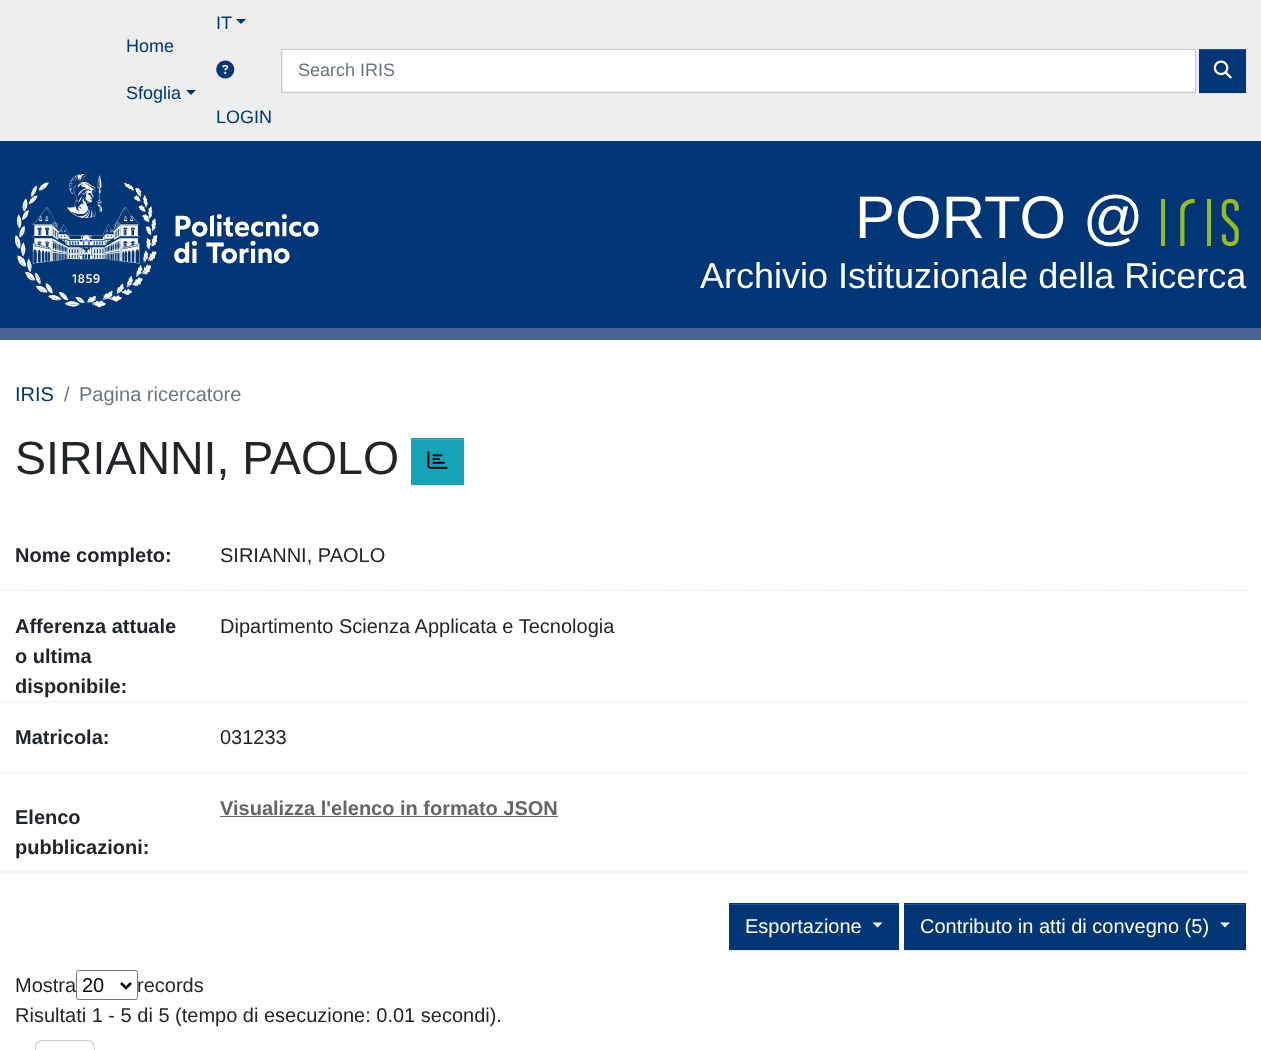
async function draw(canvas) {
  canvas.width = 1261;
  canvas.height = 1050;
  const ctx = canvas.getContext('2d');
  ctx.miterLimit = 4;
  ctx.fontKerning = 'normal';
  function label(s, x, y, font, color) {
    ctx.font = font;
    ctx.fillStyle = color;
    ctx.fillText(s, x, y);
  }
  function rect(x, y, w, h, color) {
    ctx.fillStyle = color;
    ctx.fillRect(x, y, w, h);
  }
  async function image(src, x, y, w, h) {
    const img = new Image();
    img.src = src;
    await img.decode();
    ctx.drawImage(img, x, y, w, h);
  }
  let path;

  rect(0, 0, 1261, 1050, '#fff');
  rect(0, 0, 1261, 141, '#eee');
  label('Home', 126, 52, '18px Liberation Sans', '#003576');
  label('Sfoglia', 126, 99, '18px Liberation Sans', '#003576');
  path = new Path2D('M186 90H196L191 95Z');
  ctx.fill(path);
  label('IT', 216, 29, '18px Liberation Sans', '#003576');
  path = new Path2D('M236 19H246L241 24Z');
  ctx.fill(path);
  await image('assets/img1.png', 216, 60, 19, 19);
  label('LOGIN', 216, 123, '18px Liberation Sans', '#003576');
  rect(283, 50, 912, 41, '#fff');
  ctx.strokeStyle = '#ccc';
  ctx.strokeRect(281.5, 49.5, 914, 43);
  label('Search IRIS', 298, 76, '18px Liberation Sans', '#6c757d');
  ctx.fillStyle = '#00000012';
  ctx.filter = 'blur(0.5px)';
  ctx.beginPath();
  ctx.rect(1199, 50, 47, 44);
  ctx.fill();
  ctx.filter = 'none';
  rect(1199, 50, 47, 43, '#003576');
  rect(1199, 49, 47, 1, '#26538b');
  await image('assets/img2.png', 1213, 60, 19, 19);
  rect(0, 141, 1261, 187, '#003576');
  rect(0, 328, 1261, 12, '#486293');
  await image('assets/img3.png', 15, 174, 304, 134);
  label('PORTO @', 855, 238, '60px Liberation Sans', '#fff');
  await image('assets/img4.png', 1161, 199, 78, 47);
  label('Archivio Istituzionale della Ricerca', 700, 288, '36px Liberation Sans', '#fff');
  label('IRIS', 15, 401, '20px Liberation Sans', '#003576');
  label('/', 64, 401, '20px Liberation Sans', '#6c757d');
  label('Pagina ricercatore', 79, 401, '20px Liberation Sans', '#6c757d');
  label('SIRIANNI, PAOLO', 15, 474, '46.5px Liberation Sans', '#212529');
  ctx.fillStyle = '#00000012';
  ctx.filter = 'blur(0.5px)';
  ctx.beginPath();
  ctx.rect(411, 439, 53, 47);
  ctx.fill();
  ctx.filter = 'none';
  rect(411, 438, 53, 47, '#17a2b8');
  rect(413, 439, 50, 1, '#3ab0c3');
  await image('assets/img5.png', 427, 451, 21, 18);
  path = new Path2D('M-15 590.5H1246');
  ctx.strokeStyle = '#ddd';
  ctx.lineWidth = 1.2;
  ctx.setLineDash([1.25, 1.25]);
  ctx.stroke(path);
  label('Nome completo:', 15, 562, 'bold 20px Liberation Sans', '#212529');
  label('SIRIANNI, PAOLO', 220, 562, '20px Liberation Sans', '#212529');
  path = new Path2D('M-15 702H1246');
  ctx.stroke(path);
  label('Afferenza attuale', 15, 633, 'bold 20px Liberation Sans', '#212529');
  label('o ultima', 15, 663, 'bold 20px Liberation Sans', '#212529');
  label('disponibile:', 15, 693, 'bold 20px Liberation Sans', '#212529');
  label('Dipartimento Scienza Applicata e Tecnologia', 220, 633, '20px Liberation Sans', '#212529');
  path = new Path2D('M-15 773H1246');
  ctx.stroke(path);
  label('Matricola:', 15, 744, 'bold 20px Liberation Sans', '#212529');
  label('031233', 220, 744, '20px Liberation Sans', '#212529');
  path = new Path2D('M-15 872H1246');
  ctx.stroke(path);
  label('Elenco', 15, 824, 'bold 20px Liberation Sans', '#212529');
  label('pubblicazioni:', 15, 854, 'bold 20px Liberation Sans', '#212529');
  label('Visualizza l\'elenco in formato JSON', 220, 815, 'bold 20px Liberation Sans', '#666');
  rect(220, 816, 338, 1, '#666');
  ctx.fillStyle = '#00000012';
  ctx.filter = 'blur(0.5px)';
  ctx.beginPath();
  ctx.rect(729, 904, 170, 47);
  ctx.fill();
  ctx.filter = 'none';
  rect(729, 903, 170, 47, '#003576');
  rect(730, 904, 168, 1, '#26538b');
  label('Esportazione', 745, 933, '20px Liberation Sans', '#fff');
  path = new Path2D('M872.5 922.5H882.5L877.5 927.5Z');
  ctx.fill(path);
  ctx.fillStyle = '#00000012';
  ctx.filter = 'blur(0.5px)';
  ctx.beginPath();
  ctx.rect(904, 904, 342, 47);
  ctx.fill();
  ctx.filter = 'none';
  rect(904, 903, 342, 47, '#003576');
  rect(905, 904, 340, 1, '#26538b');
  label('Contributo in atti di convegno (5)', 920, 933, '20px Liberation Sans', '#fff');
  path = new Path2D('M1220 922.5H1230L1225 927.5Z');
  ctx.fill(path);
  label('Mostra', 15, 992, '20px Liberation Sans', '#212529');
  ctx.fillStyle = '#fff';
  ctx.beginPath();
  ctx.roundRect(76.5, 970.5, 61, 29, 2);
  ctx.fill();
  ctx.strokeStyle = '#767676';
  ctx.lineWidth = 1;
  ctx.setLineDash([]);
  ctx.stroke();
  path = new Path2D('M121 983L126 988L131 983');
  ctx.strokeStyle = '#000';
  ctx.lineWidth = 2.5;
  ctx.stroke(path);
  label('20', 82, 992, '20px Liberation Sans', '#000');
  label('records', 137, 992, '20px Liberation Sans', '#212529');
  label('Risultati 1 - 5 di 5 (tempo di esecuzione: 0.01 secondi).', 15, 1022, '20px Liberation Sans', '#212529');
  ctx.fillStyle = '#ccc';
  path = new Path2D('M42 1040C40 1040 38 1041 37 1042L38 1043C39 1042 41 1041 42 1041H88C89 1041 91 1042 92 1043L93 1042C92 1041 90 1040 88 1040Z');
  ctx.fill(path);
  path = new Path2D('M95 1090V1048C95 1045 94 1043 93 1042L92 1043C93 1044 94 1046 94 1048V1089ZM35 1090L36 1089V1048C36 1046 37 1044 38 1043L37 1042C36 1043 35 1045 35 1048Z');
  ctx.fill(path);
}

draw(document.querySelector('canvas'));
